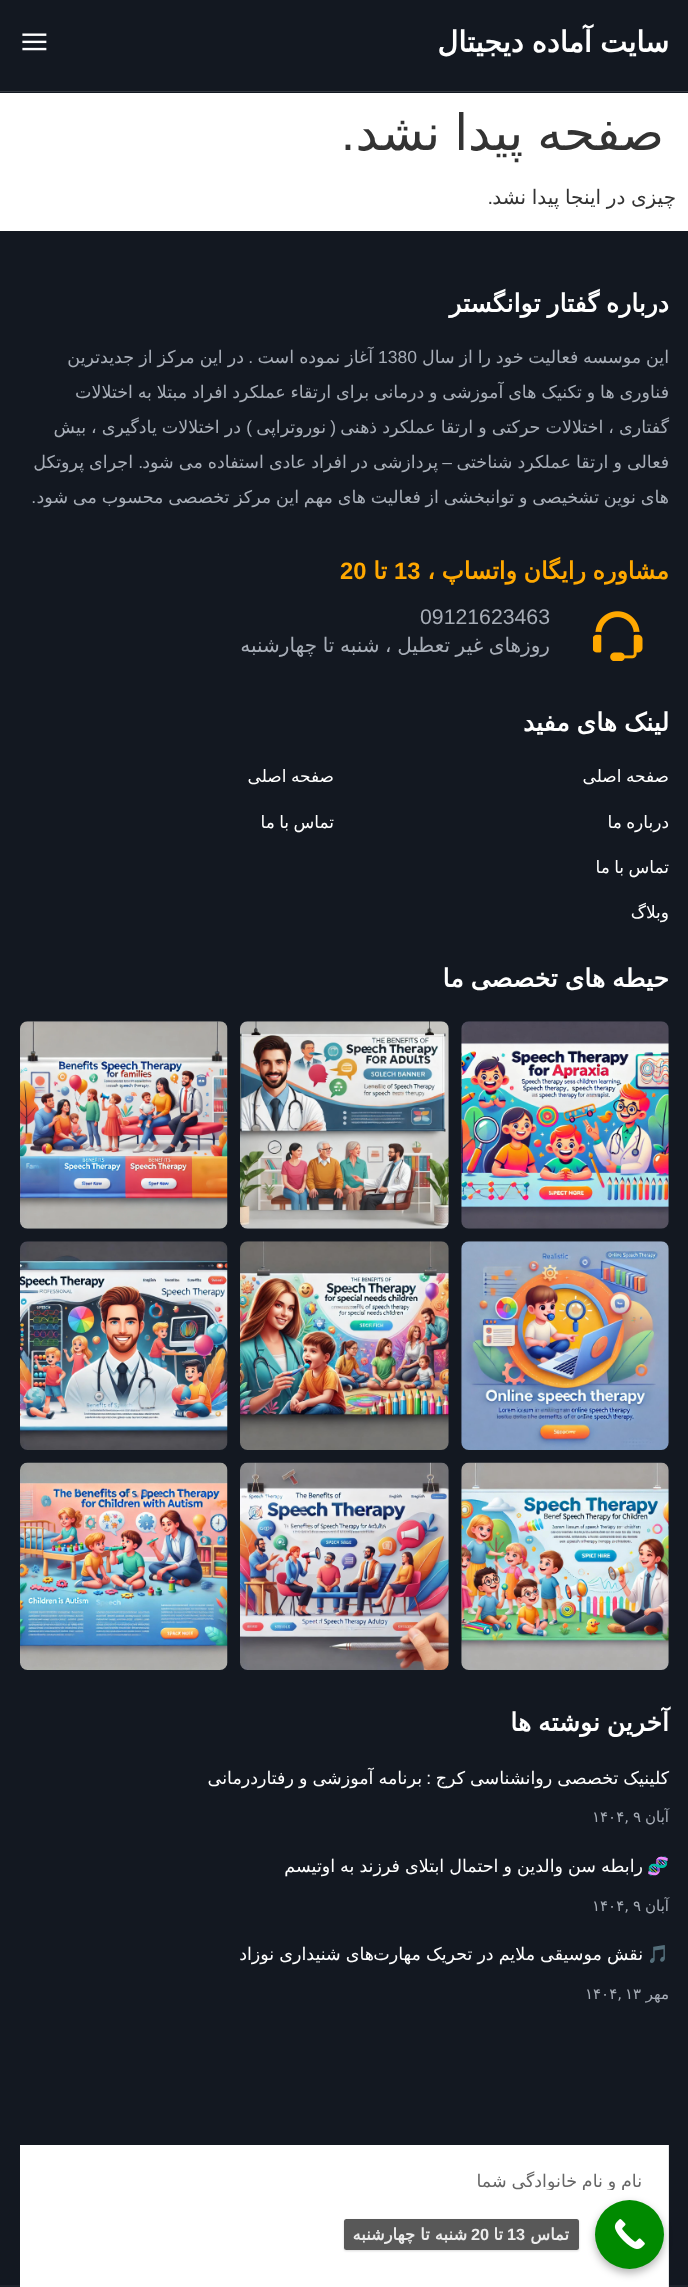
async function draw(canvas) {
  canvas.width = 688;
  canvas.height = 2287;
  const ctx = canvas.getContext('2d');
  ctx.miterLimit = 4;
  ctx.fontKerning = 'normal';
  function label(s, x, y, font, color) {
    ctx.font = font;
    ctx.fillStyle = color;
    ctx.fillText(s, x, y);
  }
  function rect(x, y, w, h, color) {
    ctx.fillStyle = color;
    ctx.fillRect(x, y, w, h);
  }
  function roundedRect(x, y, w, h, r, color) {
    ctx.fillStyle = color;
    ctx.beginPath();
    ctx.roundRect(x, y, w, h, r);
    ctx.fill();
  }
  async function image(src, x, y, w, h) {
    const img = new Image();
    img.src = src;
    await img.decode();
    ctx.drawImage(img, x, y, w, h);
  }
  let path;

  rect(0, 0, 688, 2287, '#fff');
  rect(0, 0, 688, 93, '#131821');
  rect(0, 91, 688, 1, '#363b42');
  ctx.wordSpacing = '-1px';
  ctx.direction = 'rtl';
  label('سایت آماده دیجیتال', 669, 52, 'bold 28.75px DejaVu Sans', '#fff');
  await image('assets/img1.png', 22, 33, 25, 18);
  ctx.wordSpacing = '-2px';
  label('صفحه پیدا نشد', 664, 150, '50px DejaVu Sans', '#333');
  ctx.wordSpacing = '0px';
  label('.', 355, 150, '50px Liberation Sans', '#333');
  ctx.wordSpacing = '-0.75px';
  label('چیزی در اینجا پیدا نشد', 676, 204, '20px DejaVu Sans', '#333');
  ctx.wordSpacing = '0px';
  label('.', 493, 204, '20px Liberation Sans', '#333');
  rect(0, 231, 688, 2054, '#131821');
  ctx.wordSpacing = '-1px';
  label('درباره گفتار توانگستر', 669, 312, 'bold 25px DejaVu Sans', '#fff');
  ctx.wordSpacing = '-0.75px';
  label('این موسسه فعاليت خود را از سال', 669, 363, '17.5px DejaVu Sans', '#a7adb7');
  ctx.wordSpacing = '0px';
  ctx.direction = 'ltr';
  label('1380', 378, 363, '17.5px Liberation Sans', '#a7adb7');
  ctx.wordSpacing = '-0.5px';
  ctx.direction = 'rtl';
  label('آغاز نموده است', 373, 363, '17.5px DejaVu Sans', '#a7adb7');
  ctx.wordSpacing = '0px';
  label('.', 253, 363, '17.5px Liberation Sans', '#a7adb7');
  ctx.wordSpacing = '-0.5px';
  label('در این مرکز از جدیدترین', 244, 363, '17.5px DejaVu Sans', '#a7adb7');
  ctx.wordSpacing = '-0.75px';
  label('فناوری ها و تکنیک های آموزشی و درمانی برای ارتقاء عملکرد افراد مبتلا به اختلالات', 669, 398, '17.5px DejaVu Sans', '#a7adb7');
  ctx.wordSpacing = '-0.5px';
  label('گفتاری ، اختلالات حرکتی و ارتقا عملکرد ذهنی', 669, 433, '17.5px DejaVu Sans', '#a7adb7');
  ctx.wordSpacing = '0px';
  label('(', 336, 433, '17.5px Liberation Sans', '#a7adb7');
  label('نوروتراپی', 326, 433, '17.5px DejaVu Sans', '#a7adb7');
  label(')', 252, 433, '17.5px Liberation Sans', '#a7adb7');
  ctx.wordSpacing = '-0.5px';
  label('در اختلالات یادگیری ، بیش', 241, 433, '17.5px DejaVu Sans', '#a7adb7');
  label('فعالی و ارتقا عملکرد شناختی', 669, 468, '17.5px DejaVu Sans', '#a7adb7');
  ctx.wordSpacing = '0px';
  label('–', 452, 468, '17.5px Liberation Sans', '#a7adb7');
  ctx.wordSpacing = '-0.5px';
  label('پردازشی در افراد عادی استفاده می شود', 438, 468, '17.5px DejaVu Sans', '#a7adb7');
  label('اجرای پروتکل', 133, 468, '17.5px DejaVu Sans', '#a7adb7');
  ctx.wordSpacing = '0px';
  label('.', 143, 468, '17.5px Liberation Sans', '#a7adb7');
  ctx.wordSpacing = '-0.75px';
  label('های نوین تشخیصی و توانبخشی از فعالیت های مهم این مرکز تخصصی محسوب می شود', 669, 503, '17.5px DejaVu Sans', '#a7adb7');
  ctx.wordSpacing = '0px';
  label('.', 36, 503, '17.5px Liberation Sans', '#a7adb7');
  ctx.wordSpacing = '-1px';
  label('مشاوره رایگان واتساپ ،', 669, 579, 'bold 23.75px DejaVu Sans', '#ffa800');
  ctx.wordSpacing = '0px';
  ctx.direction = 'ltr';
  label('13', 394, 579, 'bold 23.75px Liberation Sans', '#ffa800');
  ctx.direction = 'rtl';
  label('تا', 387, 579, 'bold 23.75px DejaVu Sans', '#ffa800');
  ctx.direction = 'ltr';
  label('20', 340, 579, 'bold 23.75px Liberation Sans', '#ffa800');
  await image('assets/img2.png', 593, 611, 50, 50);
  label('09121623463', 420, 624, '21.25px Liberation Sans', '#a7adb7');
  ctx.wordSpacing = '-0.75px';
  ctx.direction = 'rtl';
  label('روزهای غیر تعطیل ، شنبه تا چهارشنبه', 550, 652, '20px DejaVu Sans', '#a7adb7');
  ctx.wordSpacing = '-1px';
  label('لینک های مفید', 669, 731, 'bold 25px DejaVu Sans', '#fff');
  label('صفحه اصلی', 669, 782, '17px DejaVu Sans', '#fff');
  label('درباره ما', 669, 828, '17px DejaVu Sans', '#fff');
  label('تماس با ما', 669, 873, '17px DejaVu Sans', '#fff');
  ctx.wordSpacing = '0px';
  label('وبلاگ', 669, 918, '17px DejaVu Sans', '#fff');
  ctx.wordSpacing = '-1px';
  label('صفحه اصلی', 334, 782, '17px DejaVu Sans', '#fff');
  label('تماس با ما', 334, 828, '17px DejaVu Sans', '#fff');
  label('حیطه های تخصصی ما', 669, 987, 'bold 25px DejaVu Sans', '#fff');
  await image('assets/img3.png', 461, 1021, 208, 208);
  await image('assets/img4.png', 240, 1021, 209, 208);
  await image('assets/img5.png', 20, 1021, 208, 208);
  await image('assets/img6.png', 461, 1241, 208, 209);
  await image('assets/img7.png', 240, 1241, 209, 209);
  await image('assets/img8.png', 20, 1241, 208, 209);
  await image('assets/img9.png', 461, 1462, 208, 208);
  await image('assets/img10.png', 240, 1462, 209, 208);
  await image('assets/img11.png', 20, 1462, 208, 208);
  label('آخرین نوشته ها', 669, 1731, 'bold 25px DejaVu Sans', '#fff');
  ctx.wordSpacing = '-0.5px';
  label('کلینیک تخصصی روانشناسی کرج', 669, 1784, '17.5px DejaVu Sans', '#fff');
  ctx.wordSpacing = '0px';
  label(':', 431, 1784, '17.5px Liberation Sans', '#fff');
  ctx.wordSpacing = '-0.5px';
  label('برنامه آموزشی و رفتاردرمانی', 422, 1784, '17.5px DejaVu Sans', '#fff');
  ctx.wordSpacing = '0px';
  label('آبان', 669, 1822, '15px DejaVu Sans', '#a7adb7');
  ctx.direction = 'ltr';
  label('۹', 633, 1822, '15px DejaVu Sans', '#a7adb7');
  label('۱۴۰۴,', 592, 1822, '15px DejaVu Sans', '#a7adb7');
  ctx.direction = 'rtl';
  label('🧬', 669, 1872, '17.5px Noto Color Emoji', '#fff');
  ctx.wordSpacing = '-0.5px';
  label('رابطه سن والدین و احتمال ابتلای فرزند به اوتیسم', 643, 1872, '17.5px DejaVu Sans', '#fff');
  ctx.wordSpacing = '0px';
  label('آبان', 669, 1911, '15px DejaVu Sans', '#a7adb7');
  ctx.direction = 'ltr';
  label('۹', 633, 1911, '15px DejaVu Sans', '#a7adb7');
  label('۱۴۰۴,', 592, 1911, '15px DejaVu Sans', '#a7adb7');
  ctx.direction = 'rtl';
  label('🎵', 669, 1960, '17.5px Noto Color Emoji', '#fff');
  ctx.wordSpacing = '-0.5px';
  label('نقش موسیقی ملایم در تحریک مهارت', 643, 1960, '17.5px DejaVu Sans', '#fff');
  label('های شنیداری نوزاد', 374, 1960, '17.5px DejaVu Sans', '#fff');
  ctx.wordSpacing = '0px';
  label('مهر', 669, 1999, '15px DejaVu Sans', '#a7adb7');
  ctx.direction = 'ltr';
  label('۱۳', 625, 1999, '15px DejaVu Sans', '#a7adb7');
  label('۱۴۰۴,', 585, 1999, '15px DejaVu Sans', '#a7adb7');
  rect(0, 2285, 688, 2, '#1e232c');
  rect(20, 2145, 648, 142, '#fff');
  rect(668, 2145, 1, 142, '#e5e6e7');
  ctx.save();
  ctx.beginPath();
  ctx.rect(45, 2170, 598, 20);
  ctx.clip();
  ctx.wordSpacing = '-0.75px';
  ctx.direction = 'rtl';
  label('نام و نام خانوادگی شما', 642, 2187, '17.5px DejaVu Sans', '#666');
  ctx.restore();
  ctx.fillStyle = '#0000004d';
  ctx.filter = 'blur(4px)';
  ctx.beginPath();
  ctx.roundRect(595, 2204, 69, 69, 34.5);
  ctx.fill();
  ctx.filter = 'none';
  ctx.fillStyle = '#008a00';
  ctx.beginPath();
  ctx.arc(629.5, 2234.5, 34.5, 0, 2 * Math.PI);
  ctx.fill();
  await image('assets/img12.png', 614, 2219, 31, 30);
  ctx.save();
  path = new Path2D('M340 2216H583V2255H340ZM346.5 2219H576.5C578 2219 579 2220 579 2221.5V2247.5C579 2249 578 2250 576.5 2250H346.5C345 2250 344 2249 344 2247.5V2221.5C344 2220 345 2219 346.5 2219Z');
  ctx.clip(path, 'evenodd');
  ctx.fillStyle = '#00000026';
  ctx.filter = 'blur(1px)';
  ctx.beginPath();
  ctx.roundRect(344, 2220, 235, 31, 2.5);
  ctx.fill();
  ctx.filter = 'none';
  ctx.restore();
  roundedRect(344, 2219, 235, 31, 2.5, '#464646e6');
  ctx.direction = 'rtl';
  label('تماس', 569, 2240, 'bold 16.25px DejaVu Sans', '#ececec');
  ctx.direction = 'ltr';
  label('13', 507, 2240, 'bold 16.25px Liberation Sans', '#ececec');
  ctx.direction = 'rtl';
  label('تا', 503, 2240, 'bold 16.25px DejaVu Sans', '#ececec');
  ctx.direction = 'ltr';
  label('20', 471, 2240, 'bold 16.25px Liberation Sans', '#ececec');
  ctx.direction = 'rtl';
  label('شنبه تا چهارشنبه', 467, 2240, 'bold 16.25px DejaVu Sans', '#ececec');
}

draw(document.querySelector('canvas'));
